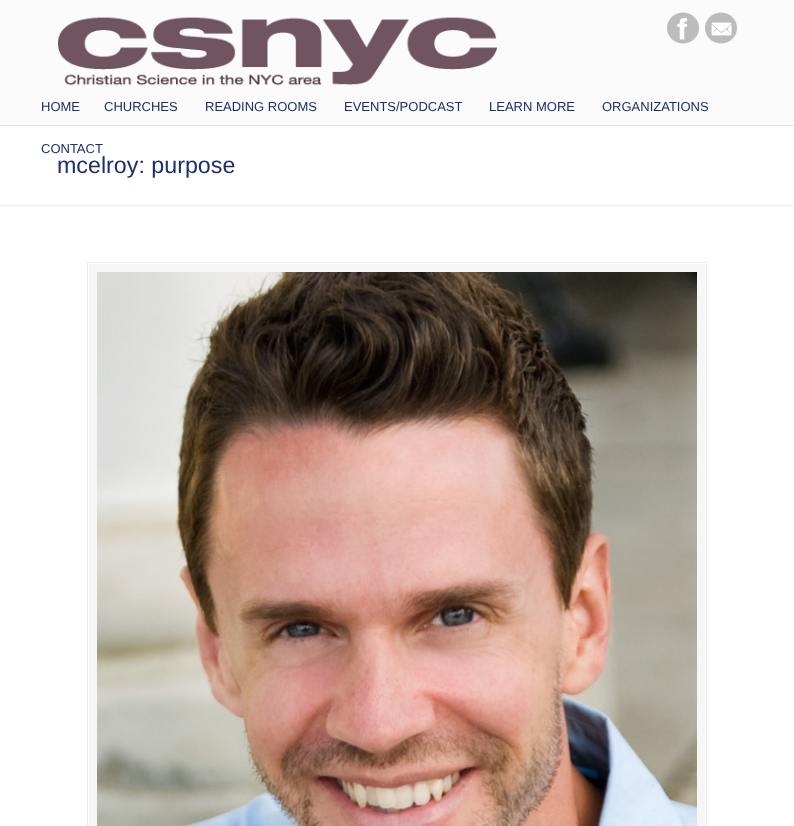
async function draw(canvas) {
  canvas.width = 794;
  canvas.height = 826;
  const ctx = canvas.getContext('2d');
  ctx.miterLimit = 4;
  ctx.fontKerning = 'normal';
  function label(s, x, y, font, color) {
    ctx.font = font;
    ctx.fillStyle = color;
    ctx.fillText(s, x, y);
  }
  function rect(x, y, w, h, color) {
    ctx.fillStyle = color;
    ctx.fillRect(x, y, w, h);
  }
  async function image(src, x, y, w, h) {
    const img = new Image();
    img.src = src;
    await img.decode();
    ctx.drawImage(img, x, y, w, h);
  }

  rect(0, 0, 794, 826, '#fbfbfb');
  await image('assets/img1.png', 58, 17, 439, 69);
  await image('assets/img2.png', 667, 12, 32, 32);
  await image('assets/img3.png', 705, 12, 32, 32);
  label('HOME', 41, 111, '13px Liberation Sans', '#1c2d70');
  label('CHURCHES', 104, 111, '13px Liberation Sans', '#1c2d70');
  label('READING ROOMS', 205, 111, '13px Liberation Sans', '#1c2d70');
  label('EVENTS/PODCAST', 344, 111, '13px Liberation Sans', '#1c2d70');
  label('LEARN MORE', 489, 111, '13px Liberation Sans', '#1c2d70');
  label('ORGANIZATIONS', 602, 111, '13px Liberation Sans', '#1c2d70');
  rect(0, 126, 794, 700, '#fff');
  label('CONTACT', 41, 153, '13px Liberation Sans', '#1c2d70');
  rect(0, 125, 794, 1, '#e9e9e9');
  label('mcelroy: purpose', 57, 173, '23.25px Liberation Sans', '#1c2d70');
  await image('assets/img4.png', 0, 205, 794, 2);
  rect(89, 264, 616, 562, '#f6f6f6');
  ctx.strokeStyle = '#eaeaea';
  ctx.strokeRect(87.5, 262.5, 619, 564);
  await image('assets/img5.png', 97, 272, 600, 554);
}

draw(document.querySelector('canvas'));
